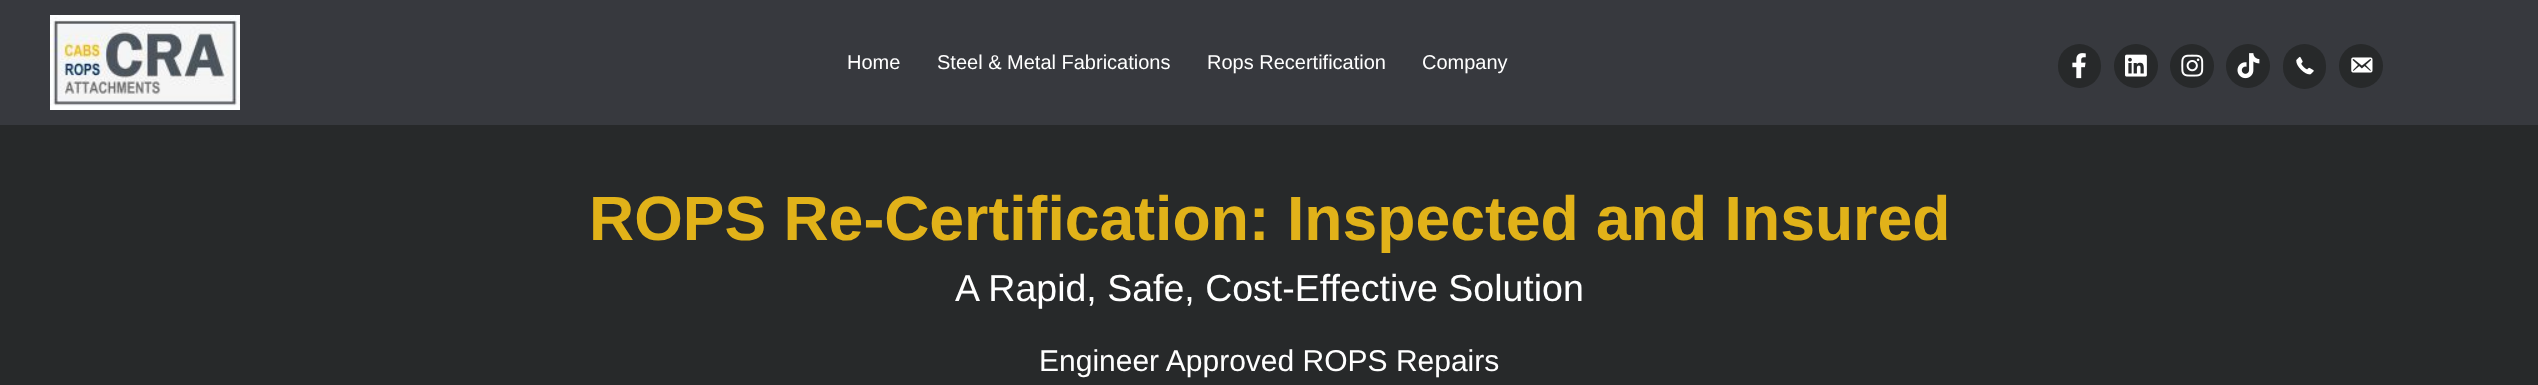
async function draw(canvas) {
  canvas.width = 2538;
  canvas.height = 385;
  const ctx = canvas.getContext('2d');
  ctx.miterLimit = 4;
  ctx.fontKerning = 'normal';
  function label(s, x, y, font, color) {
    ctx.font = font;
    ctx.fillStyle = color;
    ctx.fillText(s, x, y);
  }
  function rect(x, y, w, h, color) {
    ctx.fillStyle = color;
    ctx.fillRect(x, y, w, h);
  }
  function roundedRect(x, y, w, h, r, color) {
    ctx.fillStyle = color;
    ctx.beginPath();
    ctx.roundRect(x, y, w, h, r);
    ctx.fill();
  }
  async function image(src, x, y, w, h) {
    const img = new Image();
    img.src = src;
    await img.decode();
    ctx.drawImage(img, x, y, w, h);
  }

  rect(0, 0, 2538, 385, '#27292a');
  rect(0, 0, 2538, 125, '#37393e');
  await image('assets/img1.png', 50, 15, 190, 95);
  label('Home', 847, 69, '20px Liberation Sans', '#fff');
  label('Steel & Metal Fabrications', 937, 69, '20px Liberation Sans', '#fff');
  label('Rops Recertification', 1207, 69, '20px Liberation Sans', '#fff');
  label('Company', 1422, 69, '20px Liberation Sans', '#fff');
  roundedRect(2058, 44, 43, 44, 21.5, '#27292a');
  await image('assets/img2.png', 2072, 53, 14, 26);
  ctx.beginPath();
  ctx.arc(2136, 66, 22, 0, 2 * Math.PI);
  ctx.fill();
  await image('assets/img3.png', 2125, 54, 22, 23);
  ctx.beginPath();
  ctx.arc(2192, 66, 22, 0, 2 * Math.PI);
  ctx.fill();
  await image('assets/img4.png', 2181, 54, 23, 23);
  ctx.beginPath();
  ctx.arc(2248, 66, 22, 0, 2 * Math.PI);
  ctx.fill();
  await image('assets/img5.png', 2237, 53, 23, 26);
  roundedRect(2283, 44, 43, 45, 21.5, '#27292a');
  await image('assets/img6.png', 2296, 56, 18, 19);
  ctx.beginPath();
  ctx.arc(2361, 66, 22, 0, 2 * Math.PI);
  ctx.fill();
  await image('assets/img7.png', 2351, 57, 22, 16);
  label('ROPS Re-Certification: Inspected and Insured', 589, 240, 'bold 62.5px Liberation Sans', '#e1b219');
  label('A Rapid, Safe, Cost-Effective Solution', 955, 301, '37.5px Liberation Sans', '#fff');
  label('Engineer Approved ROPS Repairs', 1039, 371, '30px Liberation Sans', '#fff');
}

draw(document.querySelector('canvas'));
